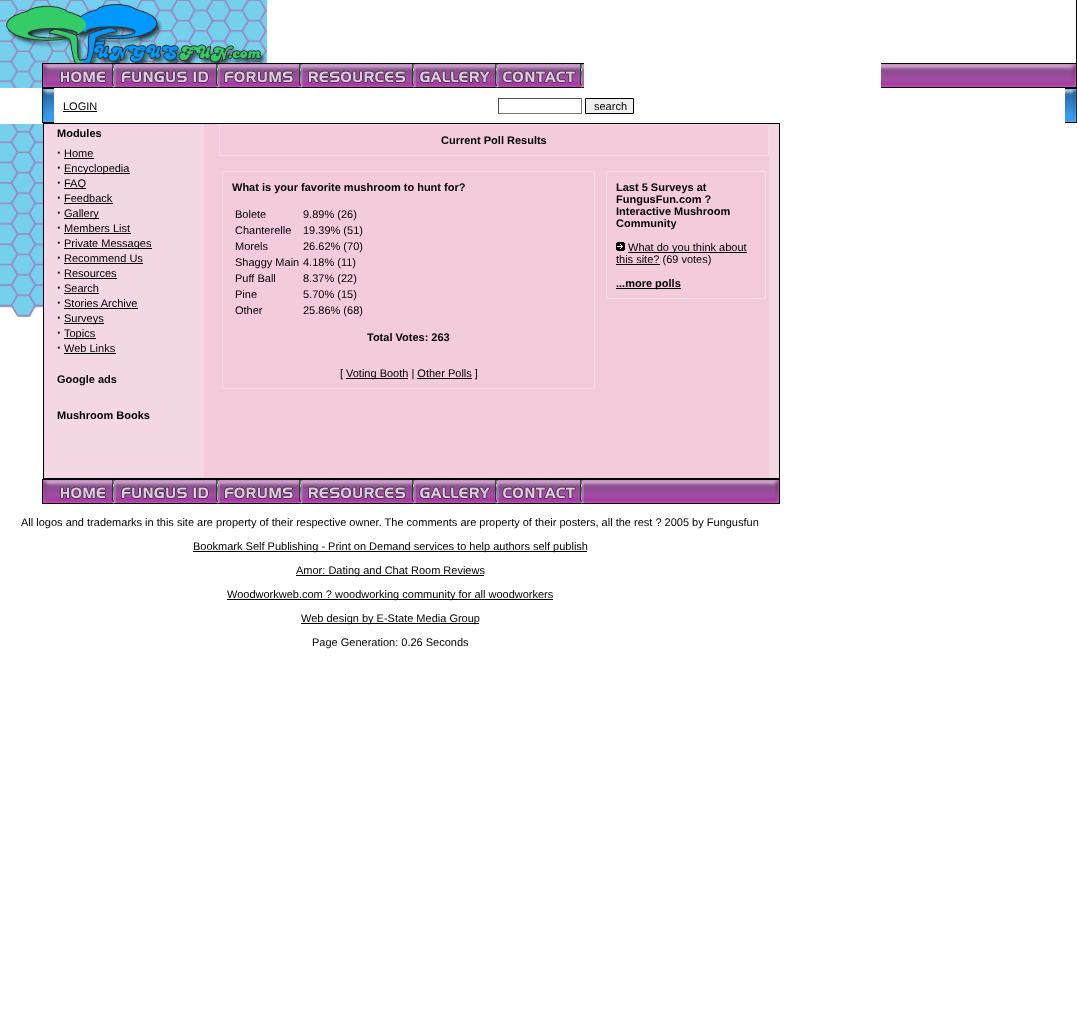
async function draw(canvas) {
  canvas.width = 1077;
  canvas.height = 1032;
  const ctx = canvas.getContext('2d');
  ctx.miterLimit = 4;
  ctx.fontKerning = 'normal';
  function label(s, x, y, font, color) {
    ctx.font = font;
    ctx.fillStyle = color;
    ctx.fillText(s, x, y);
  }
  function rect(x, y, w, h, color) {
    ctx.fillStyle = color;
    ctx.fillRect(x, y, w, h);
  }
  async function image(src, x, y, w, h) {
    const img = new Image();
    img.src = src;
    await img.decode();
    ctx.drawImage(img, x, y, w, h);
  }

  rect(0, 0, 1077, 1032, '#fff');
  await image('assets/img1.png', 0, 0, 267, 63);
  rect(1076, 0, 1, 63, '#000');
  await image('assets/img2.png', 0, 63, 42, 25);
  await image('assets/img3.png', 42, 63, 71, 25);
  await image('assets/img4.png', 113, 63, 104, 25);
  await image('assets/img5.png', 217, 63, 83, 25);
  await image('assets/img6.png', 300, 63, 113, 25);
  await image('assets/img7.png', 413, 63, 83, 25);
  await image('assets/img8.png', 496, 63, 88, 25);
  await image('assets/img9.png', 881, 63, 196, 25);
  await image('assets/img10.png', 42, 88, 12, 35);
  label('LOGIN', 63, 110, '11px Liberation Sans', '#000');
  rect(63, 111, 34, 1, '#000');
  rect(498, 98, 84, 1, '#4f4f4f');
  rect(581, 98, 1, 16, '#767676');
  rect(498, 113, 84, 1, '#767676');
  rect(498, 98, 1, 16, '#4f4f4f');
  ctx.fillStyle = '#efefef';
  ctx.beginPath();
  ctx.rect(585.5, 98.5, 48, 15);
  ctx.fill();
  ctx.strokeStyle = '#000';
  ctx.stroke();
  label('search', 594, 110, '11px Liberation Sans', '#000');
  await image('assets/img11.png', 1065, 88, 12, 35);
  rect(43, 123, 737, 1, '#000');
  await image('assets/img12.png', 0, 124, 43, 193);
  rect(43, 124, 1, 354, '#000');
  rect(44, 124, 160, 354, '#f3d7e4');
  rect(204, 124, 15, 354, '#f3cbdd');
  rect(769, 124, 10, 354, '#f3d7e4');
  rect(779, 124, 1, 354, '#000');
  label('Modules', 57, 137, 'bold 11px Liberation Sans', '#000');
  label('·', 57, 157, 'bold 13px Liberation Sans', '#000');
  label('Home', 64, 157, '11px Liberation Sans', '#000');
  rect(64, 158, 30, 1, '#000');
  label('·', 57, 172, 'bold 13px Liberation Sans', '#000');
  rect(64, 173, 66, 1, '#000');
  label('Encyclopedia', 64, 172, '11px Liberation Sans', '#000');
  label('·', 57, 187, 'bold 13px Liberation Sans', '#000');
  rect(64, 188, 22, 1, '#000');
  label('FAQ', 64, 187, '11px Liberation Sans', '#000');
  label('·', 57, 202, 'bold 13px Liberation Sans', '#000');
  label('Feedback', 64, 202, '11px Liberation Sans', '#000');
  rect(64, 203, 49, 1, '#000');
  label('·', 57, 217, 'bold 13px Liberation Sans', '#000');
  rect(64, 218, 35, 1, '#000');
  label('Gallery', 64, 217, '11px Liberation Sans', '#000');
  label('·', 57, 232, 'bold 13px Liberation Sans', '#000');
  label('Members List', 64, 232, '11px Liberation Sans', '#000');
  rect(64, 233, 67, 1, '#000');
  label('·', 57, 247, 'bold 13px Liberation Sans', '#000');
  rect(64, 248, 88, 1, '#000');
  label('Private Messages', 64, 247, '11px Liberation Sans', '#000');
  label('·', 57, 262, 'bold 13px Liberation Sans', '#000');
  label('Recommend Us', 64, 262, '11px Liberation Sans', '#000');
  rect(64, 263, 79, 1, '#000');
  label('·', 57, 277, 'bold 13px Liberation Sans', '#000');
  label('Resources', 64, 277, '11px Liberation Sans', '#000');
  rect(64, 278, 53, 1, '#000');
  label('·', 57, 292, 'bold 13px Liberation Sans', '#000');
  label('Search', 64, 292, '11px Liberation Sans', '#000');
  rect(64, 293, 35, 1, '#000');
  label('·', 57, 307, 'bold 13px Liberation Sans', '#000');
  label('Stories Archive', 64, 307, '11px Liberation Sans', '#000');
  rect(64, 308, 74, 1, '#000');
  label('·', 57, 322, 'bold 13px Liberation Sans', '#000');
  rect(64, 323, 40, 1, '#000');
  label('Surveys', 64, 322, '11px Liberation Sans', '#000');
  label('·', 57, 337, 'bold 13px Liberation Sans', '#000');
  rect(64, 338, 32, 1, '#000');
  label('Topics', 64, 337, '11px Liberation Sans', '#000');
  label('·', 57, 352, 'bold 13px Liberation Sans', '#000');
  label('Web Links', 64, 352, '11px Liberation Sans', '#000');
  rect(64, 353, 52, 1, '#000');
  label('Google ads', 57, 383, 'bold 11px Liberation Sans', '#000');
  label('Mushroom Books', 57, 419, 'bold 11px Liberation Sans', '#000');
  rect(219, 156, 550, 322, '#f3cbdd');
  rect(219, 124, 550, 32, '#f3dce6');
  rect(220, 125, 548, 30, '#f3cbdd');
  label('Current Poll Results', 441, 144, 'bold 11px Liberation Sans', '#000');
  rect(222, 171, 373, 218, '#f3dce6');
  rect(223, 172, 371, 216, '#f3cbdd');
  label('What is your favorite mushroom to hunt for?', 232, 191, 'bold 11px Liberation Sans', '#000');
  label('Bolete', 235, 218, '11px Liberation Sans', '#000');
  label('9.89% (26)', 303, 218, '11px Liberation Sans', '#000');
  label('Chanterelle', 235, 234, '11px Liberation Sans', '#000');
  label('19.39% (51)', 303, 234, '11px Liberation Sans', '#000');
  label('Morels', 235, 250, '11px Liberation Sans', '#000');
  label('26.62% (70)', 303, 250, '11px Liberation Sans', '#000');
  label('Shaggy Main', 235, 266, '11px Liberation Sans', '#000');
  label('4.18% (11)', 303, 266, '11px Liberation Sans', '#000');
  label('Puff Ball', 235, 282, '11px Liberation Sans', '#000');
  label('8.37% (22)', 303, 282, '11px Liberation Sans', '#000');
  label('Pine', 235, 298, '11px Liberation Sans', '#000');
  label('5.70% (15)', 303, 298, '11px Liberation Sans', '#000');
  label('Other', 235, 314, '11px Liberation Sans', '#000');
  label('25.86% (68)', 303, 314, '11px Liberation Sans', '#000');
  label('Total Votes: 263', 367, 341, 'bold 11px Liberation Sans', '#000');
  label('[', 340, 377, '11px Liberation Sans', '#000');
  rect(346, 378, 62, 1, '#000');
  label('Voting Booth | Other Polls ]', 346, 377, '11px Liberation Sans', '#000');
  rect(417, 378, 55, 1, '#000');
  rect(606, 171, 160, 128, '#f3dce6');
  rect(607, 172, 158, 126, '#f3cbdd');
  label('Last 5 Surveys at', 616, 191, 'bold 11px Liberation Sans', '#000');
  label('FungusFun.com ?', 616, 203, 'bold 11px Liberation Sans', '#000');
  label('Interactive Mushroom', 616, 215, 'bold 11px Liberation Sans', '#000');
  label('Community', 616, 227, 'bold 11px Liberation Sans', '#000');
  await image('assets/img13.png', 616, 242, 9, 9);
  rect(628, 252, 119, 1, '#000');
  label('What do you think about', 628, 251, '11px Liberation Sans', '#000');
  rect(616, 264, 44, 1, '#000');
  label('this site? (69 votes)', 616, 263, '11px Liberation Sans', '#000');
  rect(616, 288, 65, 1, '#000');
  label('...more polls', 616, 287, 'bold 11px Liberation Sans', '#000');
  rect(43, 478, 737, 1, '#000');
  await image('assets/img3.png', 42, 479, 71, 25);
  await image('assets/img4.png', 113, 479, 104, 25);
  await image('assets/img5.png', 217, 479, 83, 25);
  await image('assets/img6.png', 300, 479, 113, 25);
  await image('assets/img7.png', 413, 479, 83, 25);
  await image('assets/img8.png', 496, 479, 88, 25);
  await image('assets/img9.png', 584, 479, 196, 25);
  label('All logos and trademarks in this site are property of their respective owner. The comments are property of their posters, all the rest ? 2005 by Fungusfun', 21, 526, '11px Liberation Sans', '#000');
  rect(193, 551, 394, 1, '#000');
  label('Bookmark Self Publishing - Print on Demand services to help authors self publish', 193, 550, '11px Liberation Sans', '#000');
  rect(296, 575, 188, 1, '#000');
  label('Amor: Dating and Chat Room Reviews', 296, 574, '11px Liberation Sans', '#000');
  rect(227, 599, 326, 1, '#000');
  label('Woodworkweb.com ? woodworking community for all woodworkers', 227, 598, '11px Liberation Sans', '#000');
  rect(301, 623, 178, 1, '#000');
  label('Web design by E-State Media Group', 301, 622, '11px Liberation Sans', '#000');
  label('Page Generation: 0.26 Seconds', 312, 646, '11px Liberation Sans', '#000');
}

draw(document.querySelector('canvas'));
